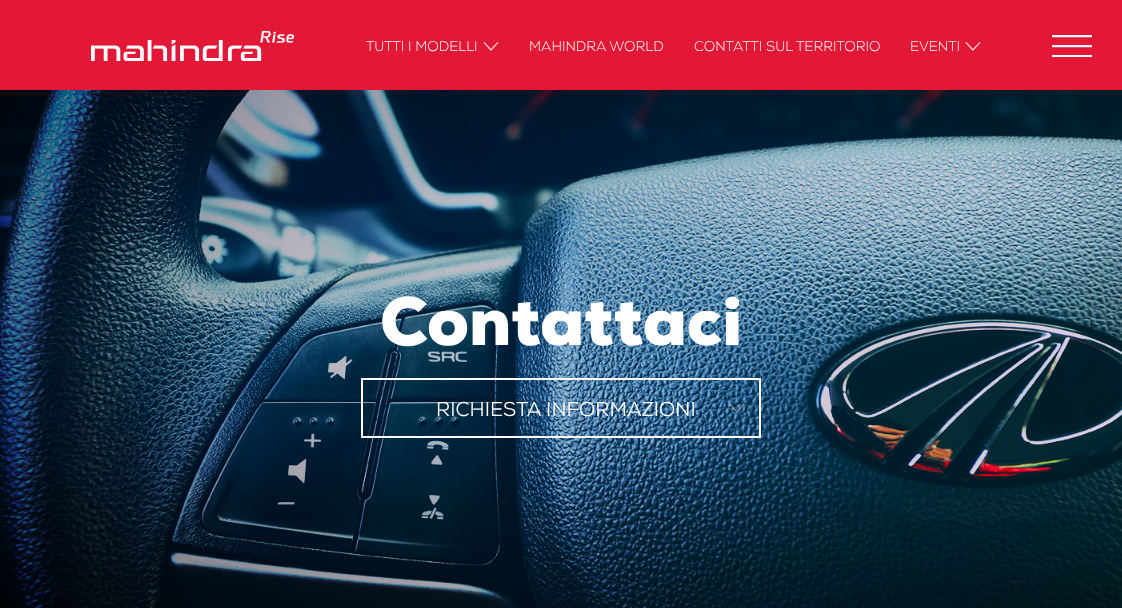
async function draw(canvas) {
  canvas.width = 1122;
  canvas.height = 608;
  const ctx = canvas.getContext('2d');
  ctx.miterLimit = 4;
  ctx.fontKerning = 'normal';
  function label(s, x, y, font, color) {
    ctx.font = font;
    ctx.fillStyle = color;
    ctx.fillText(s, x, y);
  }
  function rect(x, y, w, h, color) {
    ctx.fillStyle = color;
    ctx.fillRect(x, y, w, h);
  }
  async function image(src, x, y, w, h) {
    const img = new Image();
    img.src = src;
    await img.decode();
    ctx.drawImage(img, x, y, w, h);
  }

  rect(0, 0, 1122, 608, '#fff');
  rect(0, 0, 1122, 90, '#e31837');
  await image('assets/img1.png', 91, 31, 203, 30);
  label('TUTTI I MODELLI', 366, 51, '300 14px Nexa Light', '#fff');
  await image('assets/img2.png', 483, 42, 16, 9);
  label('MAHINDRA WORLD', 529, 51, '300 14px Nexa Light', '#fff');
  label('CONTATTI SUL TERRITORIO', 694, 51, '300 14px Nexa Light', '#fff');
  label('EVENTI', 910, 51, '300 14px Nexa Light', '#fff');
  await image('assets/img2.png', 965, 42, 16, 9);
  await image('assets/img3.png', 1052, 35, 40, 22);
  await image('assets/img4.png', 0, 90, 1122, 518);
  label('Contattaci', 380, 345, '900 68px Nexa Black', '#fff');
  ctx.strokeStyle = '#fff';
  ctx.lineWidth = 2;
  ctx.strokeRect(362, 379, 398, 58);
  label('RICHIESTA INFORMAZIONI', 436, 416, '20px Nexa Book', '#fff');
  await image('assets/img5.png', 729, 404, 16, 9);
}

draw(document.querySelector('canvas'));
